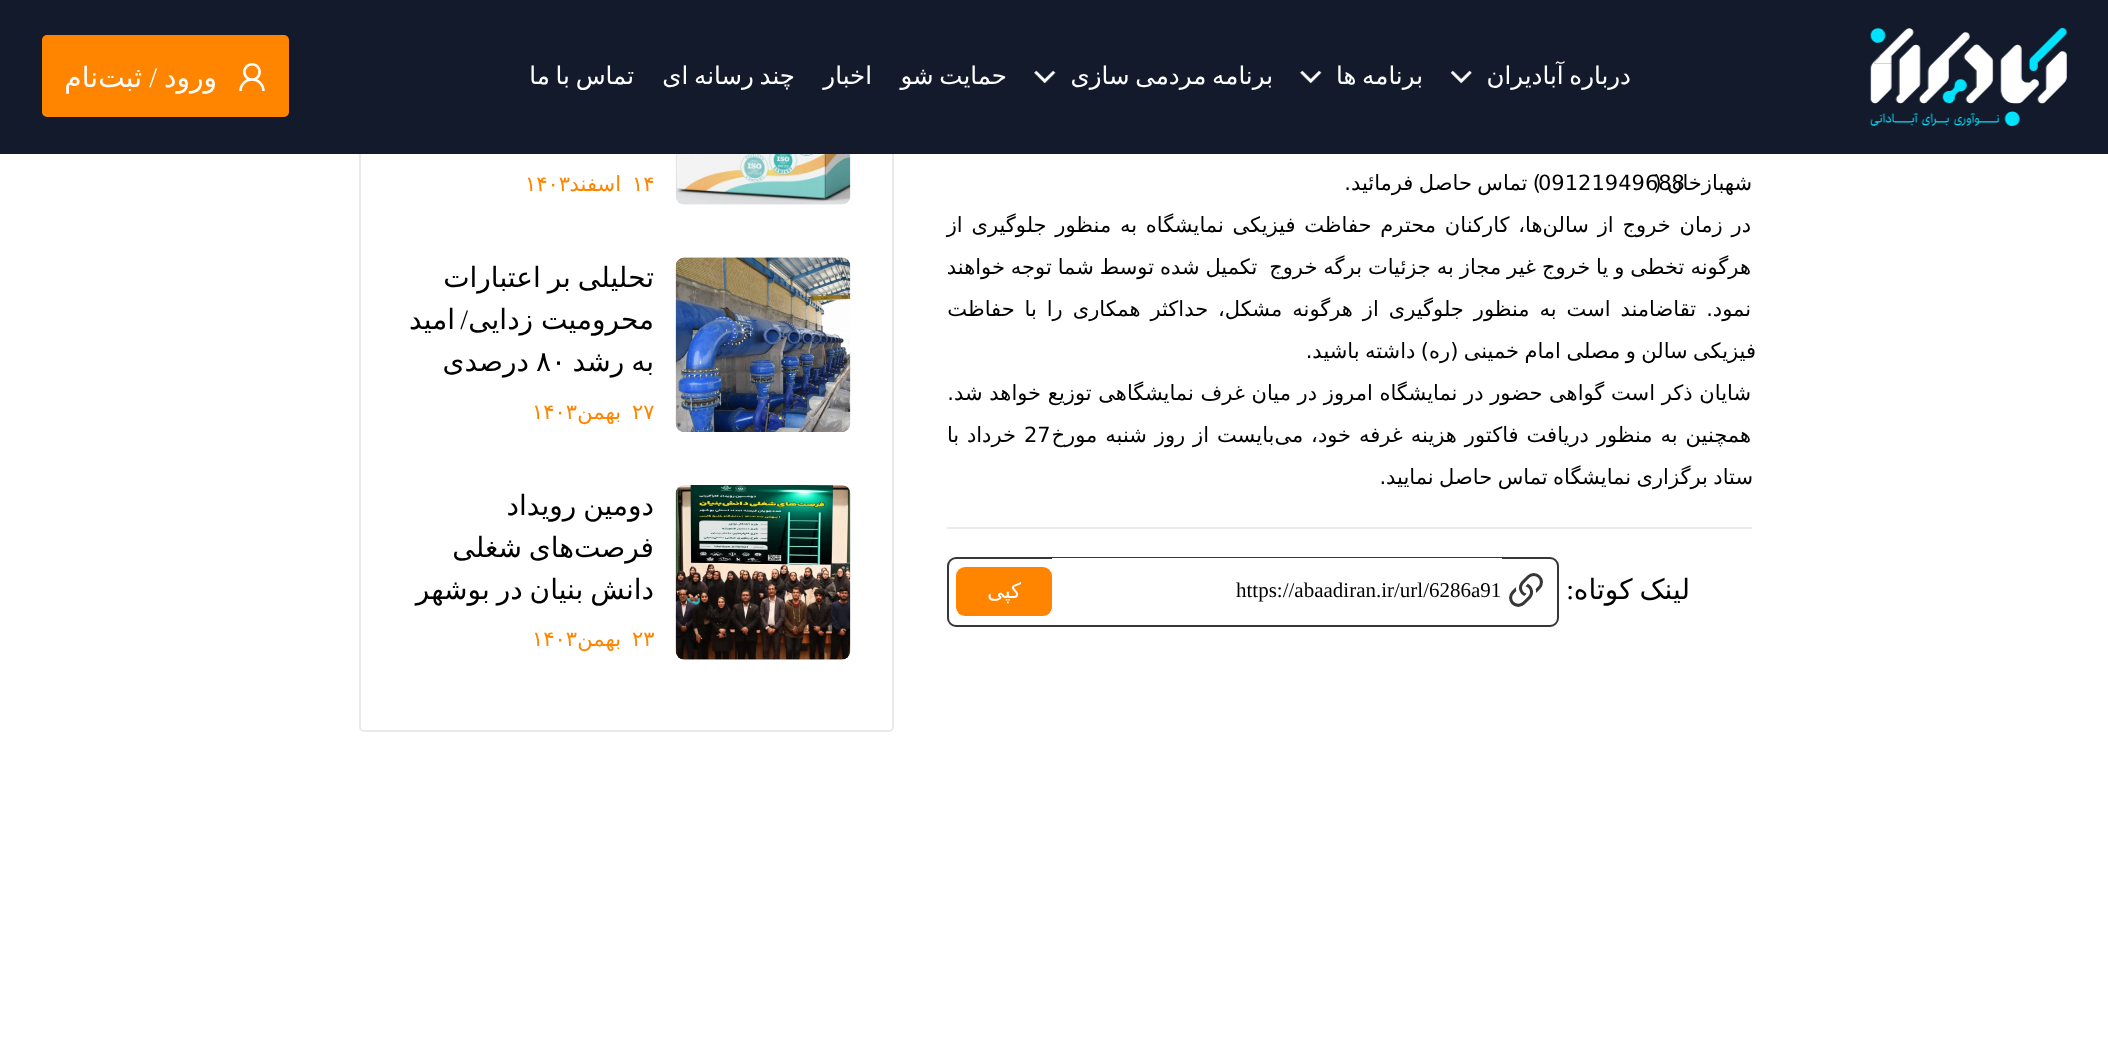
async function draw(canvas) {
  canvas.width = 2108;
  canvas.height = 1049;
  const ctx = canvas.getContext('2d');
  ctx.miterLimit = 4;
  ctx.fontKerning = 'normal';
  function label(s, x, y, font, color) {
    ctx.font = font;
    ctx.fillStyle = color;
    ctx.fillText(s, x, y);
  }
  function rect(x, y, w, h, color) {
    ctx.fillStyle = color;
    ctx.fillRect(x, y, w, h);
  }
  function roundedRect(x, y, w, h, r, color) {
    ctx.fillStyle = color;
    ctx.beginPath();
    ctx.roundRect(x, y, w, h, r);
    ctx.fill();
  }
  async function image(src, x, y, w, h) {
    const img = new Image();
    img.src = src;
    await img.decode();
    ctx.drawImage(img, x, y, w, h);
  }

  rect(0, 0, 2108, 1049, '#fff');
  ctx.beginPath();
  ctx.roundRect(360, -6, 533, 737, 4);
  ctx.strokeStyle = '#eaeaea';
  ctx.lineWidth = 2;
  ctx.stroke();
  rect(0, 0, 2108, 154, '#121a2c');
  await image('assets/img1.png', 1870, 28, 197, 98);
  ctx.wordSpacing = '-2px';
  ctx.direction = 'rtl';
  label('درباره آبادیران', 1631, 84, '24.5px DejaVu Sans', '#fff');
  await image('assets/img2.png', 1450, 70, 23, 14);
  label('برنامه ها', 1423, 84, '24.5px DejaVu Sans', '#fff');
  await image('assets/img3.png', 1300, 70, 22, 14);
  label('برنامه مردمی سازی', 1273, 84, '24.5px DejaVu Sans', '#fff');
  await image('assets/img4.png', 1034, 70, 22, 14);
  label('حمایت شو', 1007, 84, '24.5px DejaVu Sans', '#fff');
  ctx.wordSpacing = '0px';
  label('اخبار', 872, 84, '24.5px DejaVu Sans', '#fff');
  ctx.wordSpacing = '-2px';
  label('چند رسانه ای', 795, 84, '24.5px DejaVu Sans', '#fff');
  label('تماس با ما', 634, 84, '24.5px DejaVu Sans', '#fff');
  ctx.fillStyle = '#ff8500';
  ctx.beginPath();
  ctx.roundRect(43, 36, 245, 80, 4);
  ctx.fill();
  ctx.strokeStyle = '#ff8500';
  ctx.stroke();
  await image('assets/img5.png', 239, 63, 26, 28);
  ctx.wordSpacing = '0px';
  label('ورود', 217, 87, '28px DejaVu Sans', '#fff');
  label('/', 157, 87, '28px Liberation Serif', '#fff');
  label('ثبت', 142, 87, '28px DejaVu Sans', '#fff');
  label('نام', 98, 87, '28px DejaVu Sans', '#fff');
  ctx.wordSpacing = '-1.25px';
  label(') تماس حاصل فرمائید.', 1541, 190, '21px DejaVu Sans', '#000');
  ctx.wordSpacing = '0px';
  ctx.direction = 'ltr';
  label('09121949688', 1538, 190, '21px DejaVu Sans', '#000');
  ctx.wordSpacing = '-1.25px';
  ctx.direction = 'rtl';
  label('شهبازخان (', 1752, 190, '21px DejaVu Sans', '#000');
  ctx.wordSpacing = '2.1px';
  label('در زمان خروج از سالن‌ها، کارکنان محترم حفاظت فیزیکی نمایشگاه به منظور جلوگیری از', 1751, 232, '21px DejaVu Sans', '#000');
  ctx.wordSpacing = '-0.75px';
  label('هرگونه تخطی و یا خروج غیر مجاز به جزئیات برگه خروج  تکمیل شده توسط شما توجه خواهند', 1751, 274, '21px DejaVu Sans', '#000');
  ctx.wordSpacing = '3.25px';
  label('نمود. تقاضامند است به منظور جلوگیری از هرگونه مشکل، حداکثر همکاری را با حفاظت', 1751, 316, '21px DejaVu Sans', '#000');
  ctx.wordSpacing = '-1.25px';
  label('فیزیکی سالن و مصلی امام خمینی (ره) داشته باشید.', 1756, 358, '21px DejaVu Sans', '#000');
  ctx.wordSpacing = '0px';
  label('شایان ذکر است گواهی حضور در نمایشگاه امروز در میان غرف نمایشگاهی توزیع خواهد شد.', 1751, 400, '21px DejaVu Sans', '#000');
  ctx.wordSpacing = '1.25px';
  label('همچنین به منظور دریافت فاکتور هزینه غرفه خود، می‌بایست از روز شنبه مورخ', 1751, 442, '21px DejaVu Sans', '#000');
  ctx.wordSpacing = '0px';
  ctx.direction = 'ltr';
  label('27', 1024, 442, '21px DejaVu Sans', '#000');
  ctx.wordSpacing = '1px';
  ctx.direction = 'rtl';
  label('خرداد با', 1016, 442, '21px DejaVu Sans', '#000');
  ctx.wordSpacing = '-1.25px';
  label('ستاد برگزاری نمایشگاه تماس حاصل نمایید.', 1753, 484, '21px DejaVu Sans', '#000');
  rect(947, 527, 805, 2, '#eaeaea');
  ctx.wordSpacing = '-2px';
  label('لینک کوتاه', 1690, 599, '28px DejaVu Sans', '#000');
  ctx.wordSpacing = '0px';
  label(':', 1574, 599, '28px Liberation Serif', '#000');
  ctx.beginPath();
  ctx.roundRect(948, 558, 610, 68, 8);
  ctx.strokeStyle = '#363636';
  ctx.stroke();
  await image('assets/img6.png', 1509, 573, 34, 34);
  rect(1052, 558, 450, 1, '#fff');
  ctx.direction = 'ltr';
  label('https://abaadiran.ir/url/6286a91', 1236, 597, '21px Liberation Serif', '#000');
  roundedRect(956, 567, 96, 49, 9, '#ff8500');
  ctx.direction = 'rtl';
  label('کپی', 1021, 598, '21px DejaVu Sans', '#fff');
  await image('assets/img7.png', 675, 154, 176, 51);
  ctx.direction = 'ltr';
  label('۱۴', 632, 191, '21px DejaVu Sans', '#ff8500');
  ctx.direction = 'rtl';
  label('اسفند', 621, 191, '21px DejaVu Sans', '#ff8500');
  ctx.direction = 'ltr';
  label('۱۴۰۳', 525, 191, '21px DejaVu Sans', '#ff8500');
  await image('assets/img8.png', 675, 257, 176, 175);
  ctx.save();
  ctx.beginPath();
  ctx.rect(403, 257, 252, 126);
  ctx.clip();
  ctx.wordSpacing = '-2px';
  ctx.direction = 'rtl';
  label('تحلیلی بر اعتبارات', 654, 287, '28px DejaVu Sans', '#000');
  ctx.restore();
  ctx.wordSpacing = '-1px';
  ctx.direction = 'rtl';
  label('محرومیت زدایی', 654, 329, '28px DejaVu Sans', '#000');
  ctx.wordSpacing = '0px';
  label('/', 468, 329, '28px Liberation Serif', '#000');
  label('امید', 455, 329, '28px DejaVu Sans', '#000');
  ctx.wordSpacing = '-2px';
  label('به رشد', 654, 371, '28px DejaVu Sans', '#000');
  ctx.wordSpacing = '0px';
  ctx.direction = 'ltr';
  label('۸۰', 536, 371, '28px DejaVu Sans', '#000');
  ctx.direction = 'rtl';
  label('درصدی', 529, 371, '28px DejaVu Sans', '#000');
  ctx.direction = 'ltr';
  label('۲۷', 632, 419, '21px DejaVu Sans', '#ff8500');
  ctx.direction = 'rtl';
  label('بهمن', 621, 419, '21px DejaVu Sans', '#ff8500');
  ctx.direction = 'ltr';
  label('۱۴۰۳', 532, 419, '21px DejaVu Sans', '#ff8500');
  await image('assets/img9.png', 675, 485, 176, 175);
  ctx.wordSpacing = '-2px';
  ctx.direction = 'rtl';
  label('دومین رویداد', 654, 515, '28px DejaVu Sans', '#000');
  ctx.wordSpacing = '0px';
  label('فرصت', 654, 557, '28px DejaVu Sans', '#000');
  ctx.wordSpacing = '-2px';
  label('های شغلی', 574, 557, '28px DejaVu Sans', '#000');
  ctx.save();
  ctx.beginPath();
  ctx.rect(403, 485, 252, 126);
  ctx.clip();
  label('دانش بنیان در بوشهر', 654, 599, '28px DejaVu Sans', '#000');
  ctx.restore();
  ctx.wordSpacing = '0px';
  ctx.direction = 'ltr';
  label('۲۳', 632, 646, '21px DejaVu Sans', '#ff8500');
  ctx.direction = 'rtl';
  label('بهمن', 621, 646, '21px DejaVu Sans', '#ff8500');
  ctx.direction = 'ltr';
  label('۱۴۰۳', 532, 646, '21px DejaVu Sans', '#ff8500');
}

draw(document.querySelector('canvas'));
